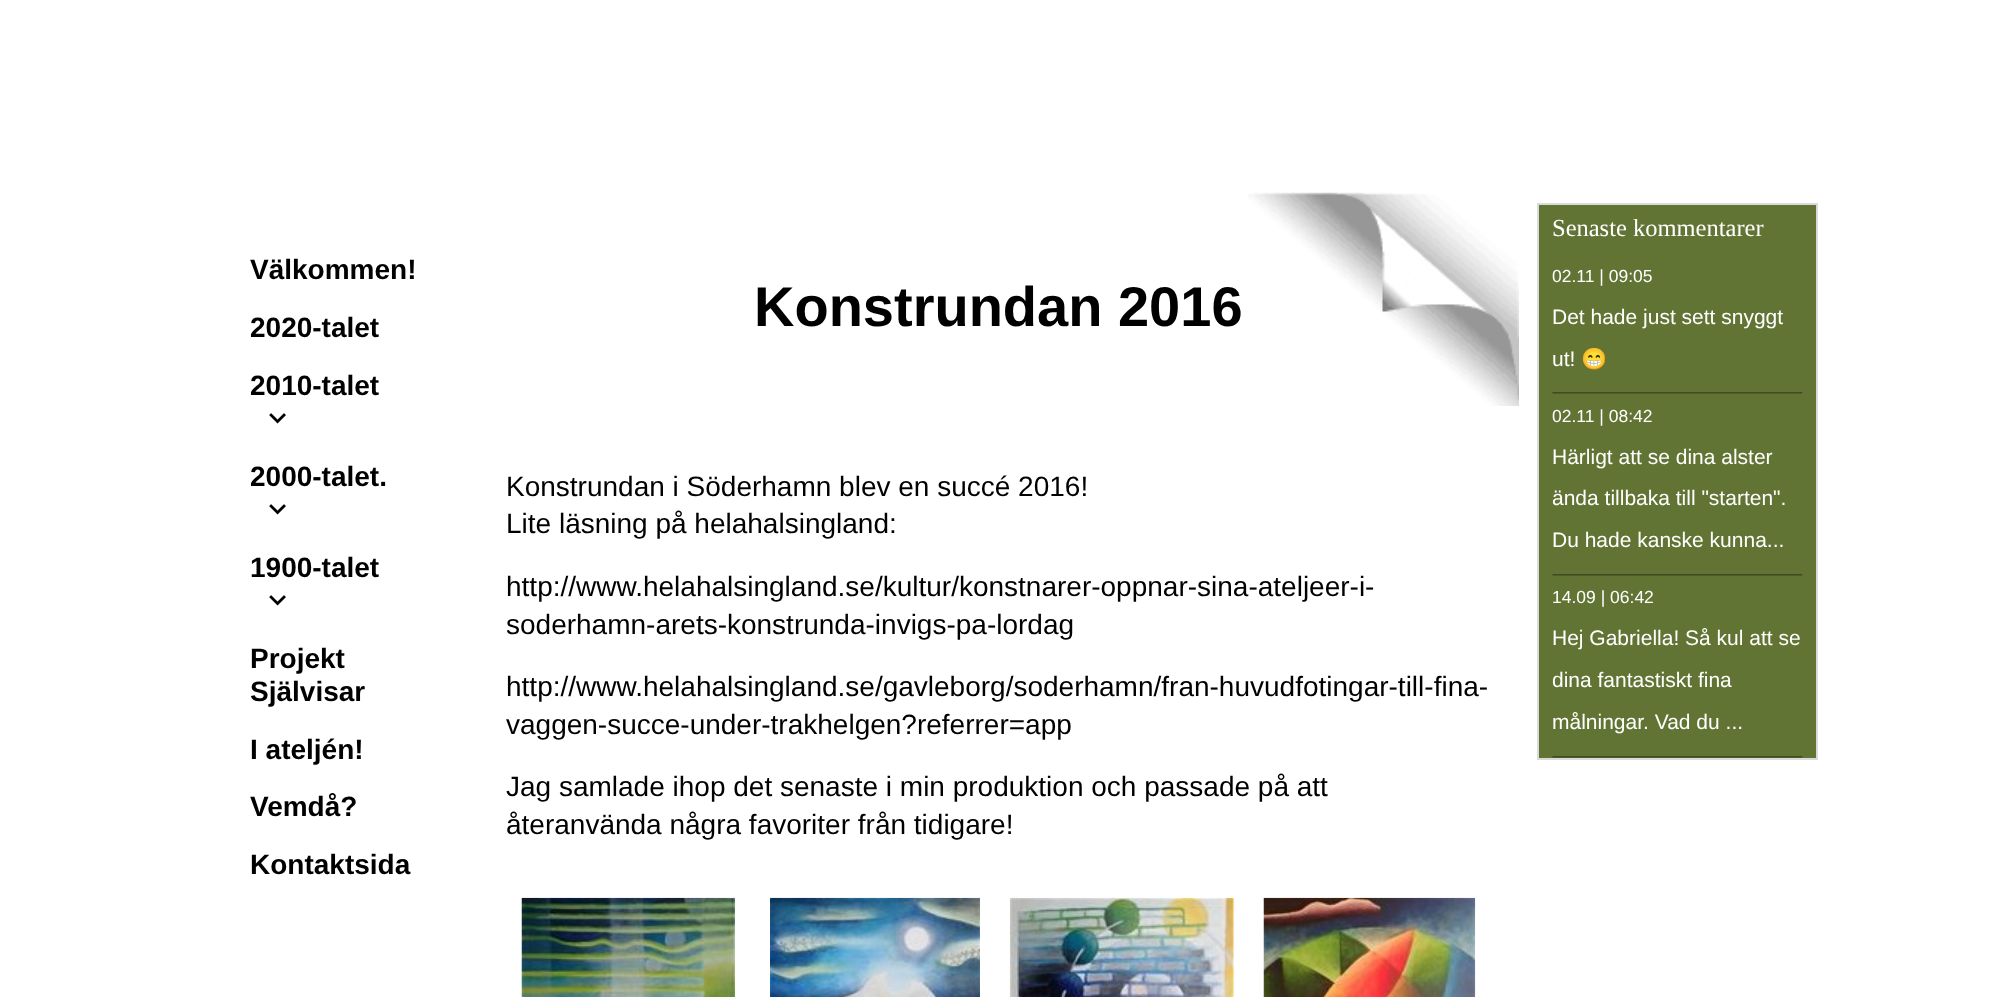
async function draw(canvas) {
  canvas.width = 1991;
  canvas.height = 997;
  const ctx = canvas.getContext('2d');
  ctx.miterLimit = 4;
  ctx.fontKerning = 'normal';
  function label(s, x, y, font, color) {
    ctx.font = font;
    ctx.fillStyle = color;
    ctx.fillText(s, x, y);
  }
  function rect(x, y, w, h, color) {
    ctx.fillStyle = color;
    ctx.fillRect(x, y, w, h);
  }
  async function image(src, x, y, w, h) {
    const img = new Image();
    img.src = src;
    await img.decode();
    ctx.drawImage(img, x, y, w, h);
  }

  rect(0, 0, 1991, 997, '#fff');
  label('Välkommen!', 250, 279, 'bold 28px Liberation Sans', '#000');
  label('2020-talet', 250, 337, 'bold 28px Liberation Sans', '#000');
  label('2010-talet', 250, 395, 'bold 28px Liberation Sans', '#000');
  await image('assets/img1.png', 269, 413, 17, 11);
  label('2000-talet.', 250, 486, 'bold 28px Liberation Sans', '#000');
  await image('assets/img1.png', 269, 504, 17, 11);
  label('1900-talet', 250, 577, 'bold 28px Liberation Sans', '#000');
  await image('assets/img1.png', 269, 595, 17, 11);
  label('Projekt', 250, 668, 'bold 28px Liberation Sans', '#000');
  label('Självisar', 250, 701, 'bold 28px Liberation Sans', '#000');
  label('I ateljén!', 250, 759, 'bold 28px Liberation Sans', '#000');
  label('Vemdå?', 250, 816, 'bold 28px Liberation Sans', '#000');
  label('Kontaktsida', 250, 874, 'bold 28px Liberation Sans', '#000');
  label('Konstrundan 2016', 754, 326, 'bold 56px Liberation Sans', '#000');
  await image('assets/img2.png', 1248, 192, 271, 214);
  label('Konstrundan i Söderhamn blev en succé 2016!', 506, 496, '28px Liberation Sans', '#000');
  label('Lite läsning på helahalsingland:', 506, 533, '28px Liberation Sans', '#000');
  label('http://www.helahalsingland.se/kultur/konstnarer-oppnar-sina-ateljeer-i-', 506, 596, '28px Liberation Sans', '#000');
  label('soderhamn-arets-konstrunda-invigs-pa-lordag', 506, 634, '28px Liberation Sans', '#000');
  label('http://www.helahalsingland.se/gavleborg/soderhamn/fran-huvudfotingar-till-fina-', 506, 696, '28px Liberation Sans', '#000');
  label('vaggen-succe-under-trakhelgen?referrer=app', 506, 734, '28px Liberation Sans', '#000');
  label('Jag samlade ihop det senaste i min produktion och passade på att', 506, 796, '28px Liberation Sans', '#000');
  label('återanvända några favoriter från tidigare!', 506, 834, '28px Liberation Sans', '#000');
  await image('assets/img3.png', 521, 897, 214, 100);
  await image('assets/img4.png', 770, 897, 210, 100);
  await image('assets/img5.png', 1009, 897, 225, 100);
  await image('assets/img6.png', 1263, 897, 213, 100);
  ctx.fillStyle = '#617433';
  ctx.beginPath();
  ctx.rect(1538, 204, 279, 555);
  ctx.fill();
  ctx.strokeStyle = '#dadada';
  ctx.lineWidth = 2;
  ctx.stroke();
  label('Senaste kommentarer', 1552, 236, '24.5px Liberation Serif', '#fff');
  label('02.11 | 09:05', 1552, 282, '17.5px Liberation Sans', '#fff');
  label('Det hade just sett snyggt', 1552, 324, '21px Liberation Sans', '#fff');
  label('ut!', 1552, 366, '21px Liberation Sans', '#fff');
  label('😁', 1581, 366, '21px Noto Color Emoji', '#fff');
  await image('assets/img7.png', 1552, 392, 251, 2);
  label('02.11 | 08:42', 1552, 422, '17.5px Liberation Sans', '#fff');
  label('Härligt att se dina alster', 1552, 464, '21px Liberation Sans', '#fff');
  label('ända tillbaka till "starten".', 1552, 505, '21px Liberation Sans', '#fff');
  label('Du hade kanske kunna...', 1552, 547, '21px Liberation Sans', '#fff');
  await image('assets/img7.png', 1552, 574, 251, 2);
  label('14.09 | 06:42', 1552, 603, '17.5px Liberation Sans', '#fff');
  label('Hej Gabriella! Så kul att se', 1552, 645, '21px Liberation Sans', '#fff');
  label('dina fantastiskt fina', 1552, 687, '21px Liberation Sans', '#fff');
  label('målningar. Vad du ...', 1552, 729, '21px Liberation Sans', '#fff');
  await image('assets/img7.png', 1552, 756, 251, 2);
}

draw(document.querySelector('canvas'));
